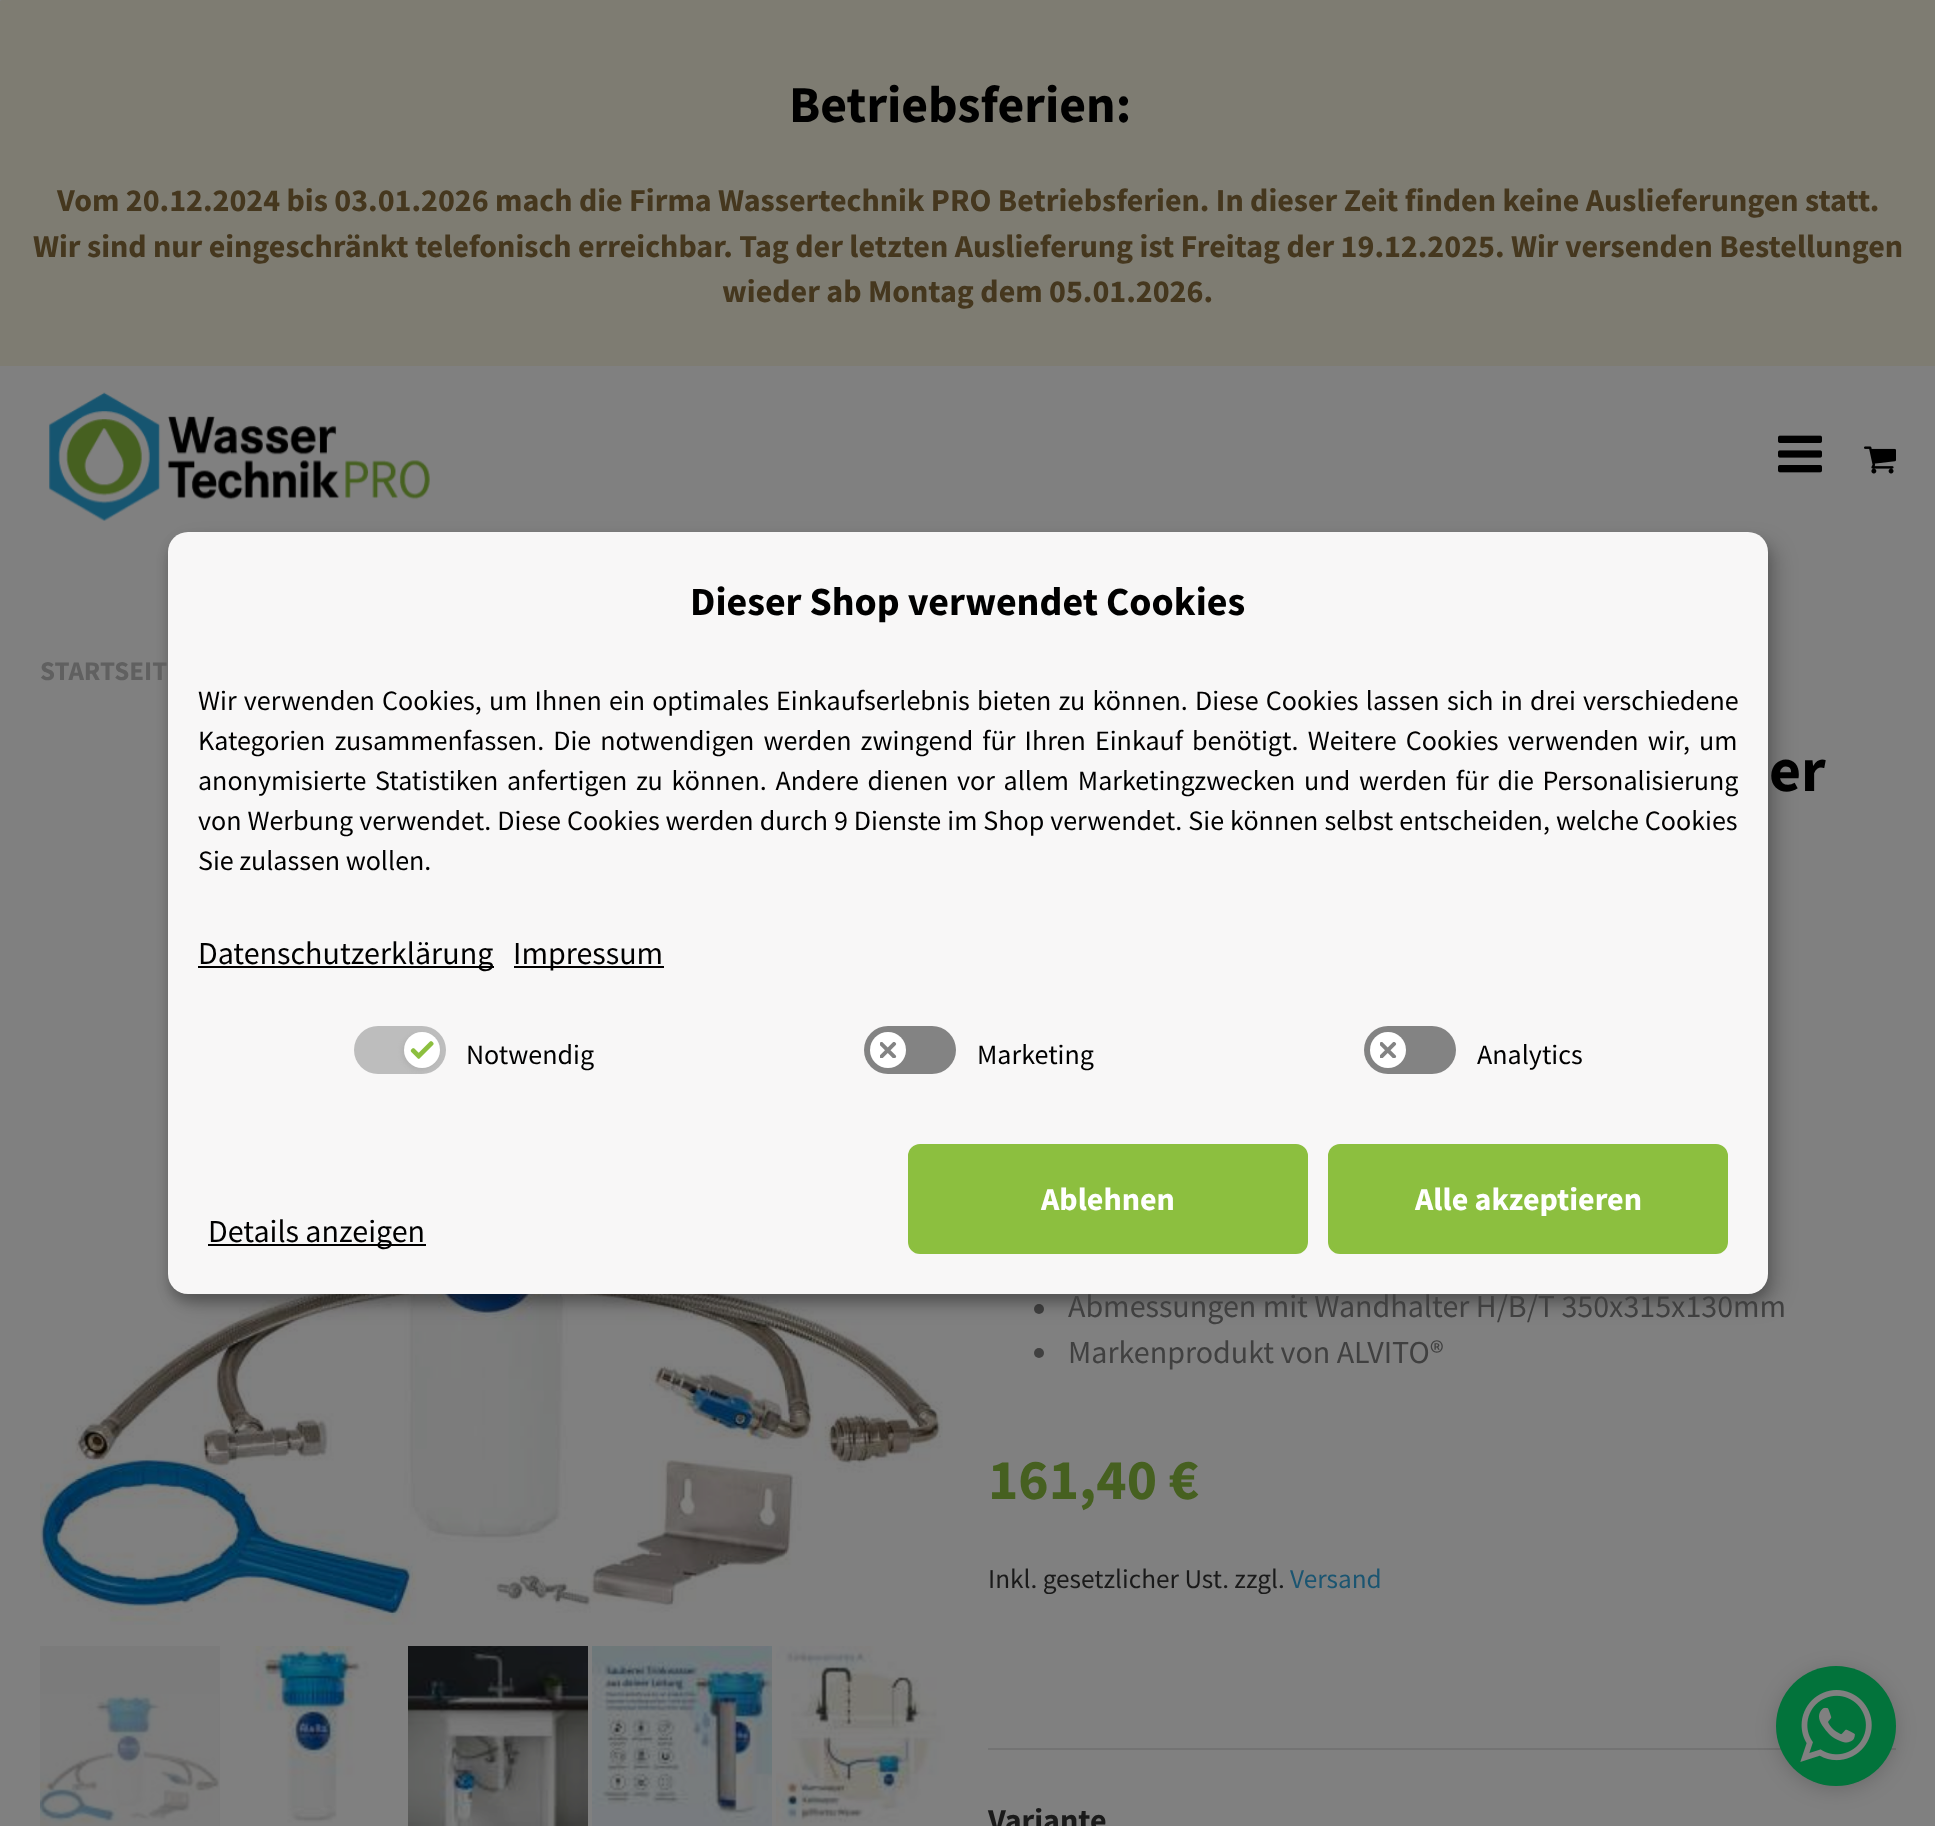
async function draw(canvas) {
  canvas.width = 1935;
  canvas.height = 1826;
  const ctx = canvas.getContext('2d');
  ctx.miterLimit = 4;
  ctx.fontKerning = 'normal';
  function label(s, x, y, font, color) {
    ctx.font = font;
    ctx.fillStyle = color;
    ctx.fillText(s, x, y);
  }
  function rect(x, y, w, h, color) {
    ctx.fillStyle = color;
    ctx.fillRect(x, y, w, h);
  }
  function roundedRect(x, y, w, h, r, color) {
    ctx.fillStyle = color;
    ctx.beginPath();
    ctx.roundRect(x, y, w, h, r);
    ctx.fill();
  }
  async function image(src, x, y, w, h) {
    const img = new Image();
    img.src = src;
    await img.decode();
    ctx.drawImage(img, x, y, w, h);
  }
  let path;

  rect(0, 0, 1935, 1826, '#808080');
  ctx.fillStyle = '#7e7c72';
  path = new Path2D('M2 0H1934C1935 0 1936 1 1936 2V366H0V2C0 1 1 0 2 0Z');
  ctx.fill(path);
  label('Betriebsferien:', 789, 122, 'bold 51.75px Source Sans Pro', '#000');
  label('Vom 20.12.2024 bis 03.01.2026 mach die Firma Wassertechnik PRO Betriebsferien. In dieser Zeit finden keine Auslieferungen statt.', 57, 211, 'bold 32px Source Sans Pro', '#45371e');
  label('Wir sind nur eingeschränkt telefonisch erreichbar. Tag der letzten Auslieferung ist Freitag der 19.12.2025. Wir versenden Bestellungen', 33, 257, 'bold 32px Source Sans Pro', '#45371e');
  label('wieder ab Montag dem 05.01.2026.', 722, 302, 'bold 32px Source Sans Pro', '#45371e');
  await image('assets/img4.png', 49, 392, 381, 129);
  await image('assets/img7.png', 40, 990, 903, 635);
  ctx.fillStyle = '#404040';
  ctx.beginPath();
  ctx.arc(1039, 1309, 5, 0, 2 * Math.PI);
  ctx.fill();
  ctx.fillStyle = '#00000030';
  ctx.filter = 'blur(10px)';
  ctx.beginPath();
  ctx.roundRect(178, 542, 1600, 762, 20);
  ctx.fill();
  ctx.filter = 'none';
  ctx.fillStyle = '#00000033';
  ctx.filter = 'blur(6px)';
  ctx.beginPath();
  ctx.roundRect(168, 540, 1600, 762, 20);
  ctx.fill();
  ctx.filter = 'none';
  roundedRect(168, 532, 1600, 762, 20, '#f8f7f7');
  label('Dieser Shop verwendet Cookies', 690, 615, 'bold 40px Source Sans Pro', '#000');
  ctx.wordSpacing = '1.6px';
  label('Wir verwenden Cookies, um Ihnen ein optimales Einkaufserlebnis bieten zu können. Diese Cookies lassen sich in drei verschiedene', 198, 710, '28px Source Sans Pro', '#000');
  ctx.wordSpacing = '3.5px';
  label('Kategorien zusammenfassen. Die notwendigen werden zwingend für Ihren Einkauf benötigt. Weitere Cookies verwenden wir, um', 198, 750, '28px Source Sans Pro', '#000');
  ctx.wordSpacing = '3.1px';
  label('anonymisierte Statistiken anfertigen zu können. Andere dienen vor allem Marketingzwecken und werden für die Personalisierung', 198, 790, '28px Source Sans Pro', '#000');
  ctx.wordSpacing = '0.4px';
  label('von Werbung verwendet. Diese Cookies werden durch 9 Dienste im Shop verwendet. Sie können selbst entscheiden, welche Cookies', 198, 830, '28px Source Sans Pro', '#000');
  ctx.wordSpacing = '0px';
  label('Sie zulassen wollen.', 198, 870, '28px Source Sans Pro', '#000');
  rect(198, 966, 296, 2, '#000');
  label('Datenschutzerklärung', 198, 964, '32px Source Sans Pro', '#000');
  rect(514, 966, 150, 2, '#000');
  label('Impressum', 513, 964, '32px Source Sans Pro', '#000');
  roundedRect(354, 1026, 92, 48, 24, '#bdbdbd');
  ctx.fillStyle = '#a3a3a373';
  ctx.filter = 'blur(2px)';
  ctx.beginPath();
  ctx.roundRect(402, 1034, 36, 36, 18);
  ctx.fill();
  ctx.filter = 'none';
  ctx.fillStyle = '#fff';
  ctx.beginPath();
  ctx.arc(422, 1050, 18, 0, 2 * Math.PI);
  ctx.fill();
  await image('assets/img1.png', 410, 1041, 24, 18);
  label('Notwendig', 466, 1064, '28px Source Sans Pro', '#000');
  roundedRect(864, 1026, 92, 48, 24, '#838383');
  ctx.fillStyle = '#fff';
  ctx.beginPath();
  ctx.arc(888, 1050, 18, 0, 2 * Math.PI);
  ctx.fill();
  await image('assets/img2.png', 880, 1042, 17, 16);
  label('Marketing', 977, 1064, '28px Source Sans Pro', '#000');
  roundedRect(1364, 1026, 92, 48, 24, '#838383');
  ctx.fillStyle = '#fff';
  ctx.beginPath();
  ctx.arc(1388, 1050, 18, 0, 2 * Math.PI);
  ctx.fill();
  await image('assets/img3.png', 1380, 1042, 17, 16);
  label('Analytics', 1477, 1064, '28px Source Sans Pro', '#000');
  ctx.fillStyle = '#8cbf3f';
  ctx.beginPath();
  ctx.roundRect(910, 1146, 396, 106, 10);
  ctx.fill();
  ctx.strokeStyle = '#8cbf3f';
  ctx.lineWidth = 4;
  ctx.stroke();
  label('Ablehnen', 1041, 1210, 'bold 32px Source Sans Pro', '#fff');
  ctx.fillStyle = '#8cbf3f';
  ctx.beginPath();
  ctx.roundRect(1330, 1146, 396, 106, 10);
  ctx.fill();
  ctx.stroke();
  label('Alle akzeptieren', 1415, 1210, 'bold 32px Source Sans Pro', '#fff');
  rect(208, 1244, 218, 2, '#000');
  label('Details anzeigen', 208, 1242, '32px Source Sans Pro', '#000');
  await image('assets/img5.png', 1778, 435, 44, 38);
  await image('assets/img6.png', 1864, 446, 32, 28);
  label('STARTSEIT', 40, 680, 'bold 27px Source Sans Pro', '#606060');
  rect(40, 1646, 180, 180, '#7b7b7b');
  await image('assets/img8.png', 40, 1694, 179, 132);
  await image('assets/img9.png', 224, 1646, 180, 180);
  await image('assets/img10.png', 408, 1646, 180, 180);
  await image('assets/img11.png', 592, 1646, 180, 180);
  await image('assets/img12.png', 776, 1646, 172, 180);
  label('er', 1769, 791, 'bold 62px Source Sans Pro', '#000');
  label('Abmessungen mit Wandhalter H/B/T 350x315x130mm', 1068, 1317, '32px Source Sans Pro', '#404040');
  ctx.beginPath();
  ctx.arc(1039, 1353, 5, 0, 2 * Math.PI);
  ctx.fill();
  label('Markenprodukt von ALVITO®', 1068, 1363, '32px Source Sans Pro', '#404040');
  label('161,40 €', 988, 1499, 'bold 57.5px Source Sans Pro', '#466020');
  label('Inkl. gesetzlicher Ust. zzgl.', 988, 1588, '27.25px Source Sans Pro', '#1a1a1a');
  label('Versand', 1290, 1588, '27.25px Source Sans Pro', '#1b5571');
  rect(988, 1748, 908, 2, '#737373');
  label('Variante', 988, 1831, 'bold 32px Source Sans Pro', '#1a1a1a');
  ctx.fillStyle = '#00000033';
  ctx.filter = 'blur(11px)';
  ctx.beginPath();
  ctx.roundRect(1778, 1672, 116, 116, 58);
  ctx.fill();
  ctx.filter = 'none';
  ctx.fillStyle = '#02733b';
  ctx.beginPath();
  ctx.arc(1836, 1726, 60, 0, 2 * Math.PI);
  ctx.fill();
  await image('assets/img13.png', 1800, 1690, 72, 72);
}

draw(document.querySelector('canvas'));
